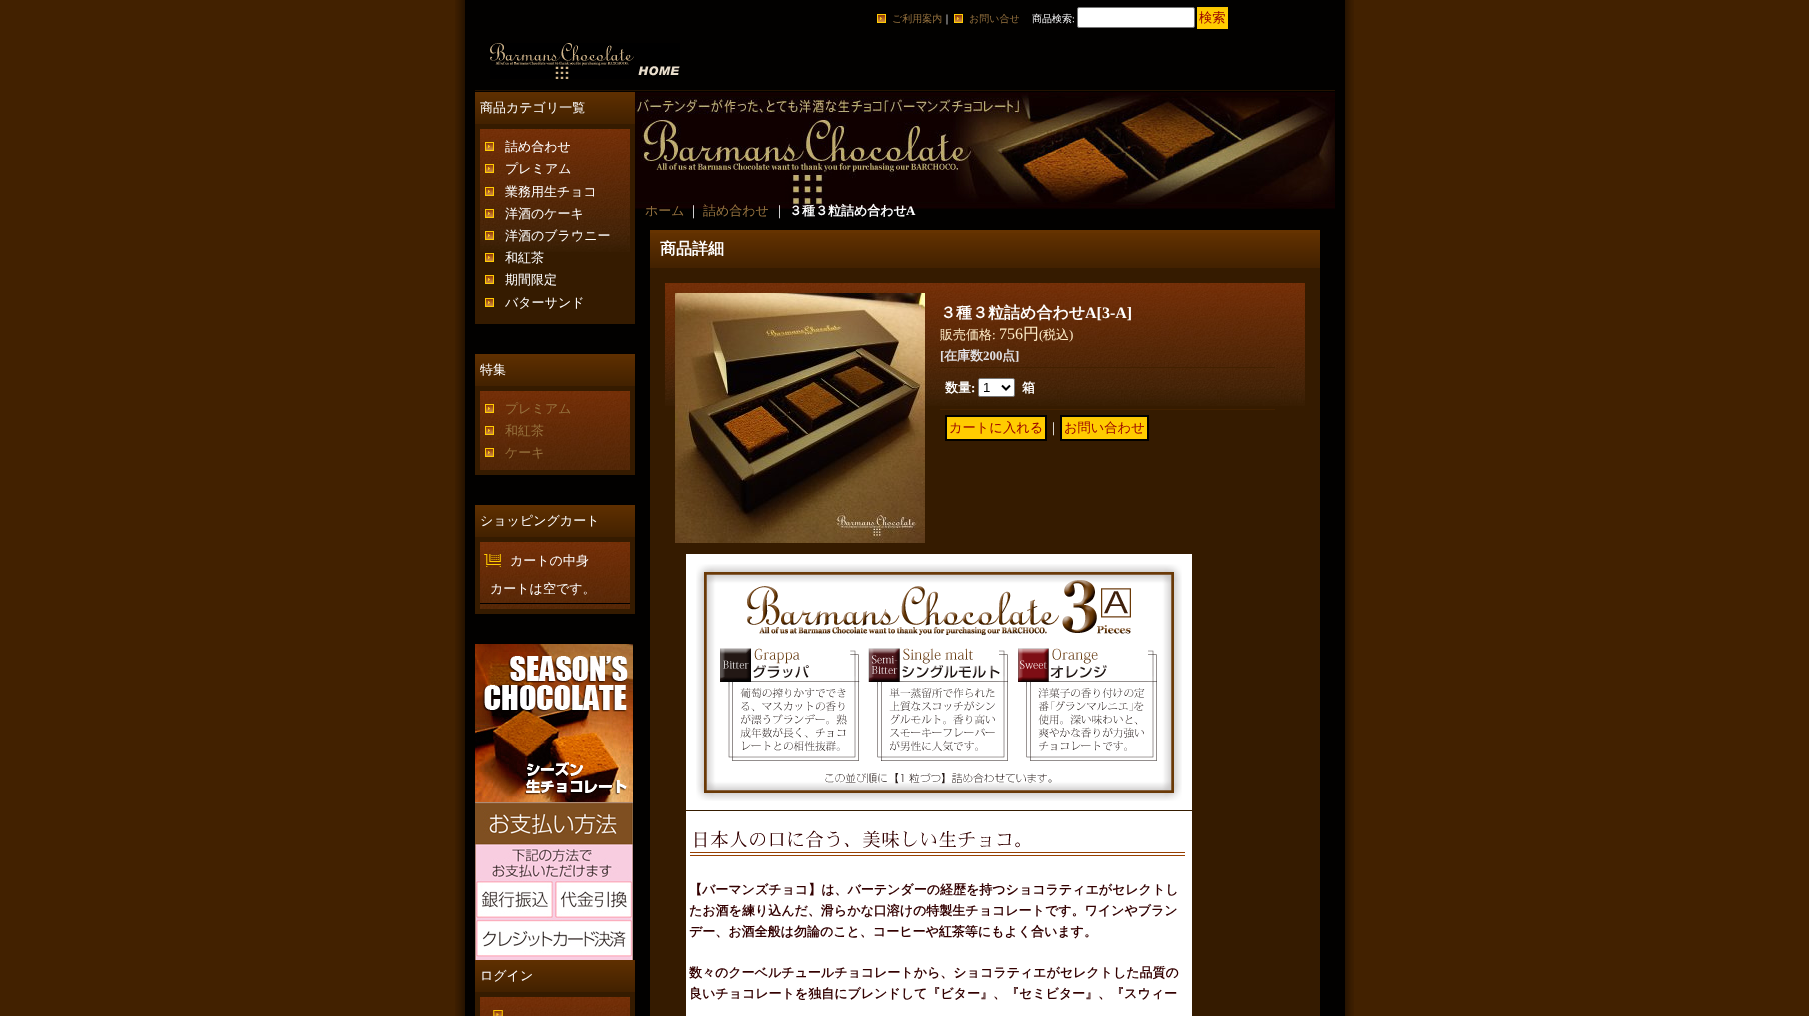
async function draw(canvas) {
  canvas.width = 1809;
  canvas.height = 1016;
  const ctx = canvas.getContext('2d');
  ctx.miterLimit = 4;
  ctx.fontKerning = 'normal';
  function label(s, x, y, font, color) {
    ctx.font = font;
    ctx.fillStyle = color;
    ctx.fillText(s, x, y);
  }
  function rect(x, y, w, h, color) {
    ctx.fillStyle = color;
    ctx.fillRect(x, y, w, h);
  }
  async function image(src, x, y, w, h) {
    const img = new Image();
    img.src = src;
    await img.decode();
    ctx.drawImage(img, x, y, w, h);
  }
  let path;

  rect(0, 0, 1809, 1016, '#422100');
  await image('assets/img1.png', 455, 0, 899, 1016);
  await image('assets/img2.png', 635, 92, 700, 117);
  rect(475, 90, 860, 1, '#241200');
  await image('assets/img3.png', 877, 14, 9, 9);
  label('ご利用案内', 892, 22, '500 10px WenQuanYi Zen Hei', '#97733f');
  label('｜', 942, 22, '500 10px WenQuanYi Zen Hei', '#fff');
  await image('assets/img3.png', 954, 14, 9, 9);
  label('お問い合せ', 969, 22, '500 10px WenQuanYi Zen Hei', '#97733f');
  label('商品検索', 1032, 22, '500 10px WenQuanYi Zen Hei', '#fff');
  label(':', 1072, 22, '10px Liberation Serif', '#fff');
  ctx.beginPath();
  ctx.roundRect(1077.5, 7.5, 117, 20, 1.5);
  ctx.fill();
  ctx.strokeStyle = '#767676';
  ctx.stroke();
  await image('assets/img4.png', 1197, 7, 31, 22);
  label('検索', 1199, 22, '500 13.25px WenQuanYi Zen Hei', '#900');
  await image('assets/img5.png', 490, 43, 190, 36);
  await image('assets/img6.png', 475, 92, 160, 32);
  label('商品カテゴリ一覧', 480, 112, '500 13px WenQuanYi Zen Hei', '#fff');
  rect(480, 252, 150, 67, '#351b00');
  await image('assets/img7.png', 480, 129, 150, 123);
  ctx.strokeStyle = '#351b00';
  ctx.lineWidth = 5;
  ctx.strokeRect(477.5, 126.5, 155, 195);
  await image('assets/img3.png', 485, 142, 9, 9);
  label('詰め合わせ', 505, 151, '500 13px WenQuanYi Zen Hei', '#fff');
  await image('assets/img3.png', 485, 164, 9, 9);
  label('プレミアム', 505, 173, '500 13px WenQuanYi Zen Hei', '#fff');
  await image('assets/img3.png', 485, 187, 9, 9);
  label('業務用生チョコ', 505, 196, '500 13px WenQuanYi Zen Hei', '#fff');
  await image('assets/img3.png', 485, 209, 9, 9);
  label('洋酒のケーキ', 505, 218, '500 13px WenQuanYi Zen Hei', '#fff');
  await image('assets/img3.png', 485, 231, 9, 9);
  label('洋酒のブラウニー', 505, 240, '500 13px WenQuanYi Zen Hei', '#fff');
  await image('assets/img3.png', 485, 253, 9, 9);
  label('和紅茶', 505, 262, '500 13px WenQuanYi Zen Hei', '#fff');
  await image('assets/img3.png', 485, 275, 9, 9);
  label('期間限定', 505, 284, '500 13px WenQuanYi Zen Hei', '#fff');
  await image('assets/img3.png', 485, 298, 9, 9);
  label('バターサンド', 505, 307, '500 13px WenQuanYi Zen Hei', '#fff');
  await image('assets/img6.png', 475, 354, 160, 32);
  label('特集', 480, 374, '500 13px WenQuanYi Zen Hei', '#fff');
  await image('assets/img8.png', 480, 391, 150, 79);
  ctx.strokeRect(477.5, 388.5, 155, 84);
  await image('assets/img3.png', 485, 404, 9, 9);
  label('プレミアム', 505, 413, '500 13px WenQuanYi Zen Hei', '#97733f');
  await image('assets/img3.png', 485, 426, 9, 9);
  label('和紅茶', 505, 435, '500 13px WenQuanYi Zen Hei', '#97733f');
  await image('assets/img3.png', 485, 448, 9, 9);
  label('ケーキ', 505, 457, '500 13px WenQuanYi Zen Hei', '#97733f');
  await image('assets/img6.png', 475, 505, 160, 32);
  label('ショッピングカート', 480, 525, '500 13px WenQuanYi Zen Hei', '#fff');
  await image('assets/img9.png', 480, 542, 150, 67);
  ctx.strokeRect(477.5, 539.5, 155, 72);
  await image('assets/img10.png', 484, 554, 17, 13);
  label('カートの中身', 510, 565, '500 13px WenQuanYi Zen Hei', '#fff');
  rect(480, 603, 150, 1, '#000');
  label('カートは空です。', 490, 593, '500 13px WenQuanYi Zen Hei', '#fff');
  await image('assets/img11.png', 475, 644, 158, 158);
  await image('assets/img12.png', 475, 802, 158, 158);
  await image('assets/img6.png', 475, 960, 160, 32);
  label('ログイン', 480, 980, '500 13px WenQuanYi Zen Hei', '#fff');
  await image('assets/img13.png', 480, 997, 150, 19);
  ctx.strokeRect(477.5, 994.5, 155, 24);
  await image('assets/img14.png', 493, 1010, 10, 6);
  label('ホーム', 645, 215, '500 13px WenQuanYi Zen Hei', '#97733f');
  label('｜', 687, 215, '500 13px WenQuanYi Zen Hei', '#fff');
  label('詰め合わせ', 703, 215, '500 13px WenQuanYi Zen Hei', '#97733f');
  label('｜', 773, 215, '500 13px WenQuanYi Zen Hei', '#fff');
  label('３種３粒詰め合わせ', 789, 215, 'bold 13px WenQuanYi Zen Hei', '#fff');
  label('A', 906, 215, 'bold 13px Liberation Serif', '#fff');
  rect(650, 230, 670, 3, '#630');
  await image('assets/img15.png', 650, 233, 670, 35);
  label('商品詳細', 660, 254, 'bold 16px WenQuanYi Zen Hei', '#fff');
  rect(650, 268, 670, 748, '#351b00');
  await image('assets/img16.png', 665, 283, 640, 123);
  await image('assets/img17.png', 675, 293, 250, 250);
  label('３種３粒詰め合わせ', 940, 318, 'bold 16px WenQuanYi Zen Hei', '#fff');
  label('A[3-A]', 1085, 318, 'bold 16px Liberation Serif', '#fff');
  label('販売価格', 940, 339, '500 13px WenQuanYi Zen Hei', '#ffedc8');
  label(':', 992, 339, '13px Liberation Serif', '#ffedc8');
  label('756', 999, 339, '16px Liberation Serif', '#ffedc8');
  label('円', 1023, 339, '500 16px WenQuanYi Zen Hei', '#ffedc8');
  label('(', 1039, 339, '13px Liberation Serif', '#ffedc8');
  label('税込', 1043, 339, '500 13px WenQuanYi Zen Hei', '#ffedc8');
  label(')', 1069, 339, '13px Liberation Serif', '#ffedc8');
  label('[', 940, 360, 'bold 13px Liberation Serif', '#e0dfe3');
  label('在庫数', 944, 360, 'bold 13px WenQuanYi Zen Hei', '#e0dfe3');
  label('200', 983, 360, 'bold 13px Liberation Serif', '#e0dfe3');
  label('点', 1002, 360, 'bold 13px WenQuanYi Zen Hei', '#e0dfe3');
  label(']', 1015, 360, 'bold 13px Liberation Serif', '#e0dfe3');
  rect(940, 367, 335, 1, '#422100');
  label('数量', 945, 392, 'bold 13px WenQuanYi Zen Hei', '#fff');
  label(':', 971, 392, 'bold 13px Liberation Serif', '#fff');
  ctx.beginPath();
  ctx.roundRect(978.5, 378.5, 36, 18, 1.5);
  ctx.fill();
  ctx.strokeStyle = '#767676';
  ctx.lineWidth = 1;
  ctx.stroke();
  path = new Path2D('M1002 385.5L1006 389.5L1010 385.5');
  ctx.strokeStyle = '#000';
  ctx.lineWidth = 2;
  ctx.stroke(path);
  label('1', 983, 392, '13.25px Liberation Sans', '#000');
  label('箱', 1022, 392, 'bold 13px WenQuanYi Zen Hei', '#fff');
  rect(940, 409, 335, 1, '#422100');
  await image('assets/img18.png', 947, 417, 98, 22);
  ctx.strokeRect(946, 416, 100, 24);
  label('カートに入れる', 949, 432, '500 13.25px WenQuanYi Zen Hei', '#900');
  label('｜', 1047, 432, '500 13px WenQuanYi Zen Hei', '#fff');
  await image('assets/img19.png', 1062, 417, 85, 22);
  ctx.strokeRect(1061, 416, 87, 24);
  label('お問い合わせ', 1064, 432, '500 13.25px WenQuanYi Zen Hei', '#900');
  rect(686, 554, 506, 256, '#fff');
  await image('assets/img20.png', 696, 564, 486, 237);
  rect(686, 811, 506, 205, '#fff');
  await image('assets/img21.png', 690, 830, 495, 26);
  label('【バーマンズチョコ】は、バーテンダーの経歴を持つショコラティエがセレクトし', 689, 894, 'bold 13px WenQuanYi Zen Hei', '#300');
  label('たお酒を練り込んだ、滑らかな口溶けの特製生チョコレートです。ワインやブラン', 689, 915, 'bold 13px WenQuanYi Zen Hei', '#300');
  label('デー、お酒全般は勿論のこと、コーヒーや紅茶等にもよく合います。', 689, 936, 'bold 13px WenQuanYi Zen Hei', '#300');
  label('数々のクーベルチュールチョコレートから、ショコラティエがセレクトした品質の', 689, 977, 'bold 13px WenQuanYi Zen Hei', '#300');
  label('良いチョコレートを独自にブレンドして『ビター』、『セミビター』、『スウィー', 689, 998, 'bold 13px WenQuanYi Zen Hei', '#300');
}

draw(document.querySelector('canvas'));
